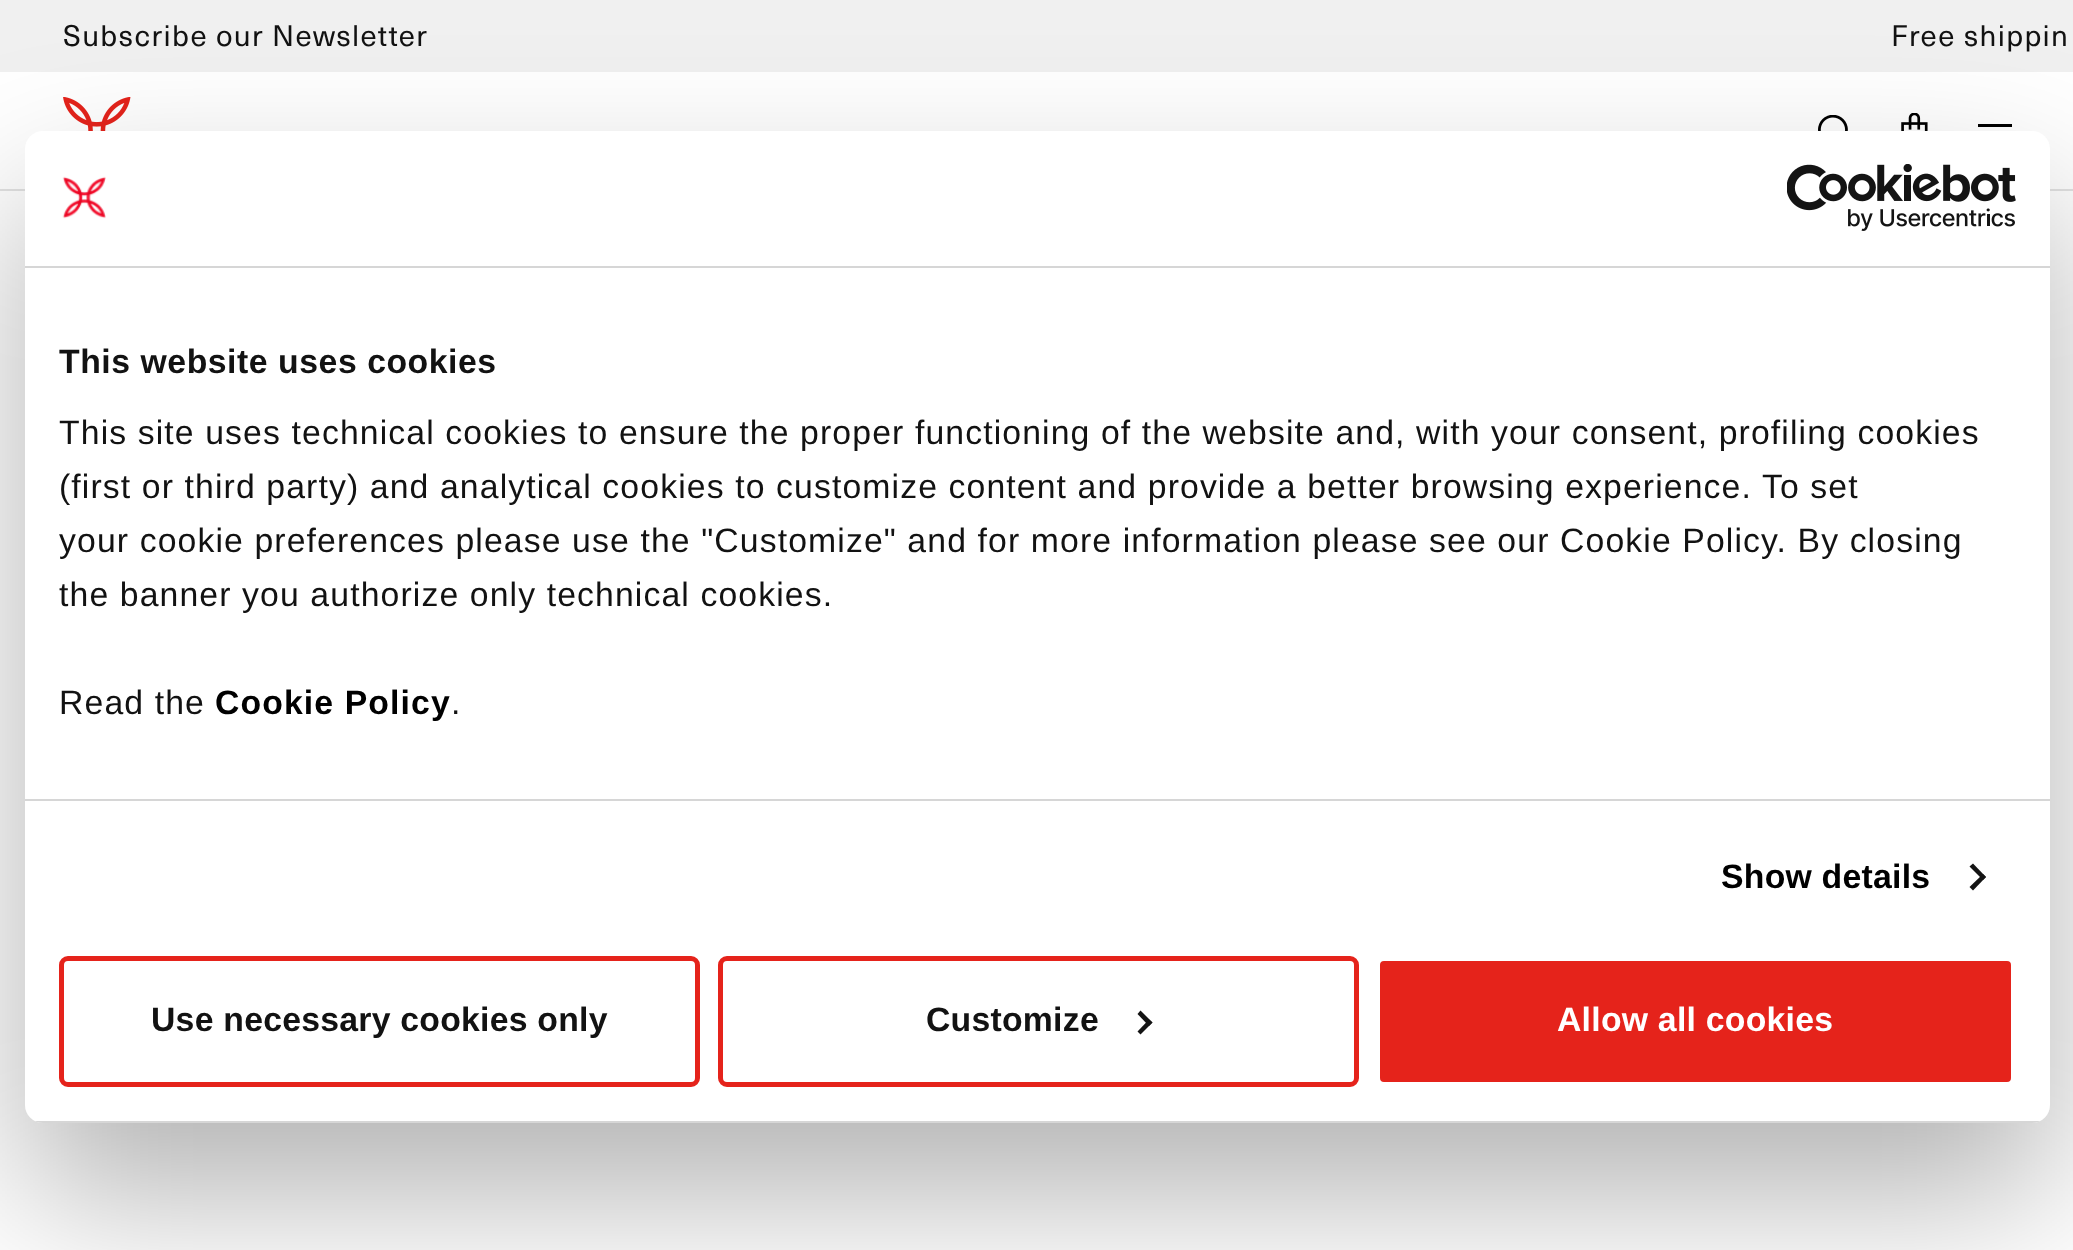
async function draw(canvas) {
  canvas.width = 2073;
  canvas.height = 1250;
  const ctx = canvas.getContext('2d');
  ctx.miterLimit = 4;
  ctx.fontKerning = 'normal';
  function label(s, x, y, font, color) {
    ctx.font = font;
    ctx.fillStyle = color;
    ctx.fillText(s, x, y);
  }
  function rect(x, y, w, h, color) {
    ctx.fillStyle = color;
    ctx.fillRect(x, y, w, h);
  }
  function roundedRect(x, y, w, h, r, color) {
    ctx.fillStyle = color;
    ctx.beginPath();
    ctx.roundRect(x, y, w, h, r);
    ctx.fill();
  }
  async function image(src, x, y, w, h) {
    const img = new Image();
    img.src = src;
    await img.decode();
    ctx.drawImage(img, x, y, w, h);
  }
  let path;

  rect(0, 0, 2073, 1250, '#fff');
  rect(0, 189, 2073, 2, '#e3e3e3');
  rect(0, 0, 2073, 72, '#f0f0f0');
  ctx.letterSpacing = '1.35px';
  label('Subscribe our Newsletter', 63, 46, '29.25px "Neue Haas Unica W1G"', '#121212');
  label('Free shippin', 1891, 46, '29.25px "Neue Haas Unica W1G"', '#121212');
  await image('assets/img1.png', 63, 97, 68, 34);
  await image('assets/img2.png', 1818, 115, 30, 16);
  await image('assets/img3.png', 1901, 113, 27, 18);
  rect(1978, 124, 34, 3, '#000');
  ctx.fillStyle = '#0000004d';
  ctx.filter = 'blur(76.5px)';
  ctx.beginPath();
  ctx.roundRect(25, 203, 2025, 992, 18);
  ctx.fill();
  ctx.filter = 'none';
  roundedRect(25, 131, 2025, 992, 18, '#fff');
  rect(25, 266, 2025, 2, '#d6d6d6');
  await image('assets/img4.png', 62, 176, 44, 43);
  await image('assets/img5.png', 1787, 164, 229, 67);
  rect(25, 799, 2025, 2, '#d6d6d6');
  ctx.letterSpacing = '0.55px';
  label('This website uses cookies', 59, 373, 'bold 33.75px Liberation Sans', '#121212');
  ctx.letterSpacing = '1.12px';
  label('This site uses technical cookies to ensure the proper functioning of the website and, with your consent, profiling cookies', 59, 444, '33.75px Liberation Sans', '#121212');
  label('(first or third party) and analytical cookies to customize content and provide a better browsing experience. To set', 59, 498, '33.75px Liberation Sans', '#121212');
  label('your cookie preferences please use the "Customize" and for more information please see our Cookie Policy. By closing', 59, 552, '33.75px Liberation Sans', '#121212');
  label('the banner you authorize only technical cookies.', 59, 606, '33.75px Liberation Sans', '#121212');
  label('Read the', 59, 714, '33.75px Liberation Sans', '#121212');
  label('Cookie Policy', 215, 714, 'bold 33.75px Liberation Sans', '#000');
  label('.', 451, 714, '33.75px Liberation Sans', '#121212');
  ctx.letterSpacing = '0.25px';
  label('Show details', 1721, 888, 'bold 33.75px Liberation Sans', '#000');
  ctx.fillStyle = '#141414';
  path = new Path2D('M1973 863.5L1986 877L1983 880L1969.5 866.5Z');
  ctx.fill(path);
  path = new Path2D('M1983 874L1986 877L1973 890.5L1969.5 887Z');
  ctx.fill(path);
  ctx.save();
  ctx.beginPath();
  ctx.roundRect(25, 131, 2025, 992, 18);
  ctx.clip();
  rect(35, 1121, 2005, 2, '#d6d6d6');
  ctx.restore();
  ctx.beginPath();
  ctx.roundRect(61.5, 958.5, 636, 126, 6.5);
  ctx.strokeStyle = '#e5231b';
  ctx.lineWidth = 5;
  ctx.stroke();
  label('Use necessary cookies only', 151, 1031, 'bold 33.75px Liberation Sans', '#121212');
  ctx.beginPath();
  ctx.roundRect(720.5, 958.5, 636, 126, 6.5);
  ctx.stroke();
  label('Customize', 926, 1031, 'bold 33.75px Liberation Sans', '#121212');
  ctx.fillStyle = '#141414';
  path = new Path2D('M1140.5 1010.5L1152.5 1022.5L1149 1026L1137.5 1014Z');
  ctx.fill(path);
  path = new Path2D('M1149 1019.5L1152.5 1022.5L1140.5 1034.5L1137.5 1031.5Z');
  ctx.fill(path);
  ctx.fillStyle = '#e5231b';
  ctx.beginPath();
  ctx.roundRect(1377.5, 958.5, 636, 126, 6.5);
  ctx.fill();
  ctx.strokeStyle = '#fff';
  ctx.stroke();
  label('Allow all cookies', 1557, 1031, 'bold 33.75px Liberation Sans', '#fff');
}

draw(document.querySelector('canvas'));
